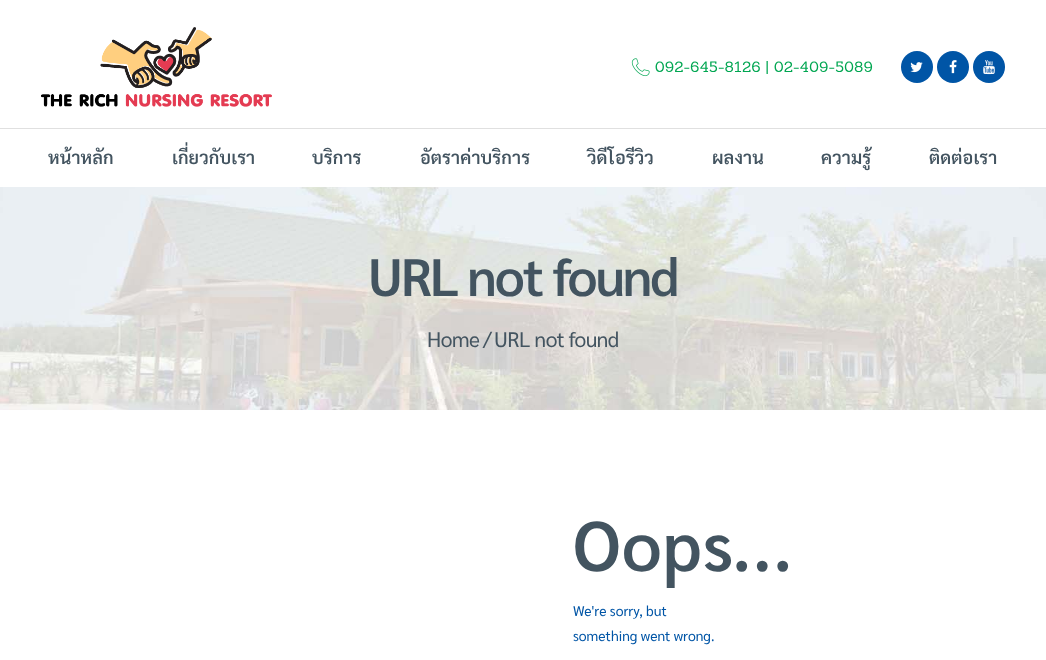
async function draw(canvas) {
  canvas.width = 1046;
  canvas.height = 660;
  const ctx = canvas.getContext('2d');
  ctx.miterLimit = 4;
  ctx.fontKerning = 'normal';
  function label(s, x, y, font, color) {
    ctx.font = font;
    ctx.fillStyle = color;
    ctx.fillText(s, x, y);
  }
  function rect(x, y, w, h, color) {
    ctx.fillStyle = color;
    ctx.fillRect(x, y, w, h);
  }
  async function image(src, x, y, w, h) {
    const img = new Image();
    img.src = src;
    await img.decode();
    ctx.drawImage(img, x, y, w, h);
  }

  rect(0, 0, 1046, 660, '#fff');
  rect(0, 128, 1046, 1, '#e0e0e0');
  await image('assets/img1.png', 41, 27, 231, 80);
  await image('assets/img2.png', 631, 58, 19, 19);
  ctx.letterSpacing = '0.5px';
  label('092-645-8126 | 02-409-5089', 655, 72, '14.6px Sanchez', '#00a651');
  ctx.fillStyle = '#0055a6';
  ctx.beginPath();
  ctx.arc(917, 67, 16, 0, 2 * Math.PI);
  ctx.fill();
  await image('assets/img3.png', 910, 62, 13, 11);
  ctx.beginPath();
  ctx.arc(953, 67, 16, 0, 2 * Math.PI);
  ctx.fill();
  await image('assets/img4.png', 949, 60, 8, 14);
  ctx.beginPath();
  ctx.arc(989, 67, 16, 0, 2 * Math.PI);
  ctx.fill();
  await image('assets/img5.png', 983, 60, 12, 15);
  ctx.letterSpacing = '0.1px';
  label('หน้าหลัก', 48, 164, '600 18px Sarabun', '#435460');
  label('เกี่ยวกับเรา', 172, 164, '600 18px Sarabun', '#435460');
  label('บริการ', 312, 164, '600 18px Sarabun', '#435460');
  label('อัตราค่าบริการ', 420, 164, '600 18px Sarabun', '#435460');
  label('วิดีโอรีวิว', 587, 164, '600 18px Sarabun', '#435460');
  label('ผลงาน', 712, 164, '600 18px Sarabun', '#435460');
  label('ความรู้', 821, 164, '600 18px Sarabun', '#435460');
  label('ติดต่อเรา', 929, 164, '600 18px Sarabun', '#435460');
  await image('assets/img6.png', 0, 187, 1046, 223);
  ctx.letterSpacing = '-2px';
  label('URL not found', 368, 296, '600 52.5px Sarabun', '#435460');
  ctx.letterSpacing = '-0.5px';
  label('Home', 427, 347, '21px Sarabun', '#435460');
  label('/', 483, 347, '21px Sarabun', '#435460');
  label('URL not found', 494, 347, '21px Sarabun', '#435460');
  ctx.letterSpacing = '1px';
  label('Oops...', 573, 571, '600 70px Sarabun', '#435460');
  ctx.letterSpacing = '0px';
  label('We\'re sorry, but', 573, 616, '14px Sarabun', '#0055a6');
  label('something went wrong.', 573, 641, '14px Sarabun', '#0055a6');
}

draw(document.querySelector('canvas'));
